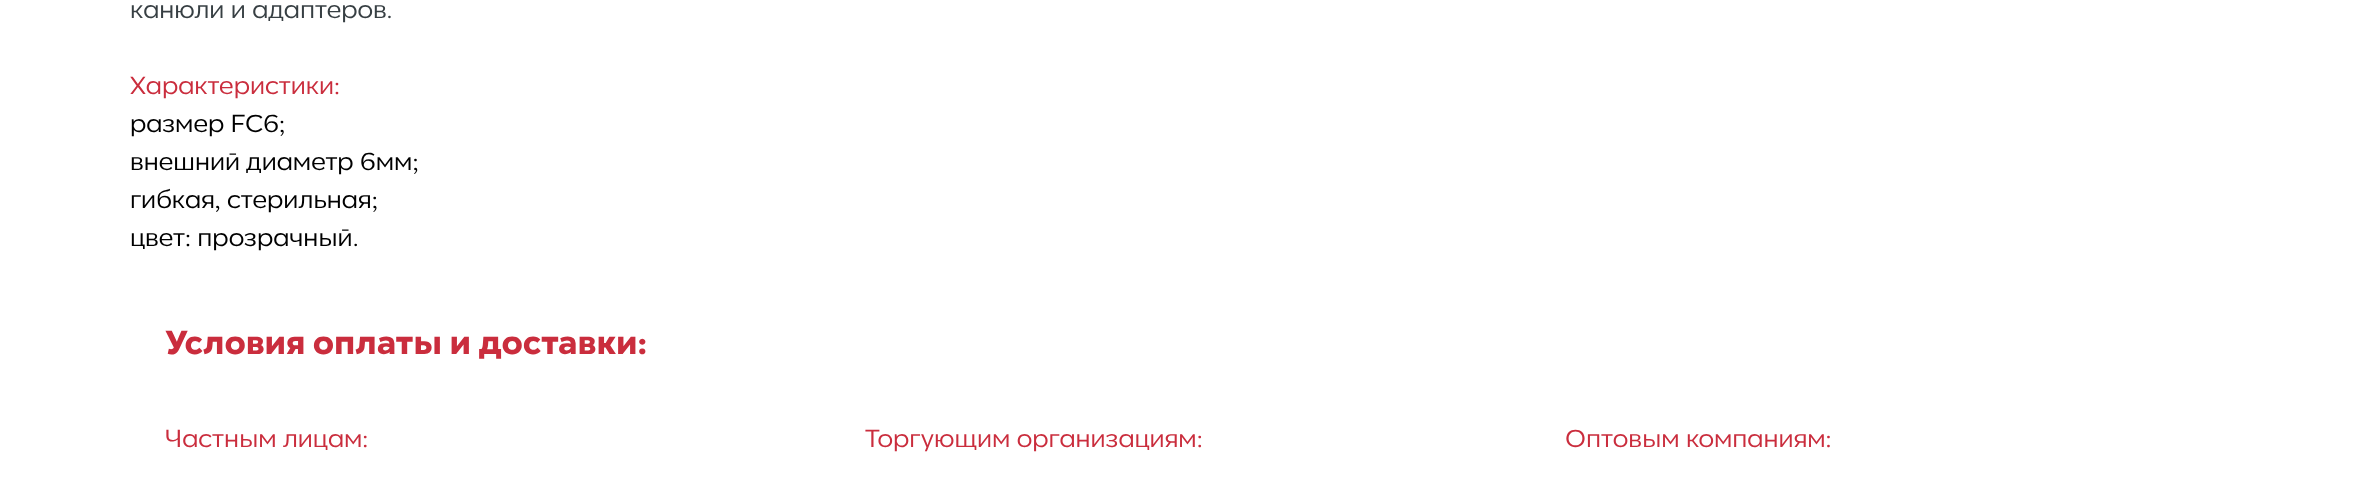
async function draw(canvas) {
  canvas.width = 2360;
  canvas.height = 490;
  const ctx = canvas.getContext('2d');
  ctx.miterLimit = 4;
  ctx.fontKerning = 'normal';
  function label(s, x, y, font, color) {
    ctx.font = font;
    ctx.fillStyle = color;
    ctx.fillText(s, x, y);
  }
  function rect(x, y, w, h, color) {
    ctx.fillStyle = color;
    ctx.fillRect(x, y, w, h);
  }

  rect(0, 0, 2360, 490, '#fff');
  label('канюли и адаптеров.', 130, 18, '24.5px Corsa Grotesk', '#373f43');
  label('Характеристики:', 130, 94, '24.5px Corsa Grotesk', '#ca2d3d');
  label('размер FC6;', 130, 132, '24.5px Corsa Grotesk', '#000');
  label('внешний диаметр 6мм;', 130, 170, '24.5px Corsa Grotesk', '#000');
  label('гибкая, стерильная;', 130, 208, '24.5px Corsa Grotesk', '#000');
  label('цвет: прозрачный.', 130, 246, '24.5px Corsa Grotesk', '#000');
  label('Условия оплаты и доставки:', 165, 354, '800 33.25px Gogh', '#ca2d3d');
  label('Частным лицам:', 165, 447, '24.5px Corsa Grotesk', '#ca2d3d');
  label('Торгующим организациям:', 865, 447, '24.5px Corsa Grotesk', '#ca2d3d');
  label('Оптовым компаниям:', 1565, 447, '24.5px Corsa Grotesk', '#ca2d3d');
}

draw(document.querySelector('canvas'));
